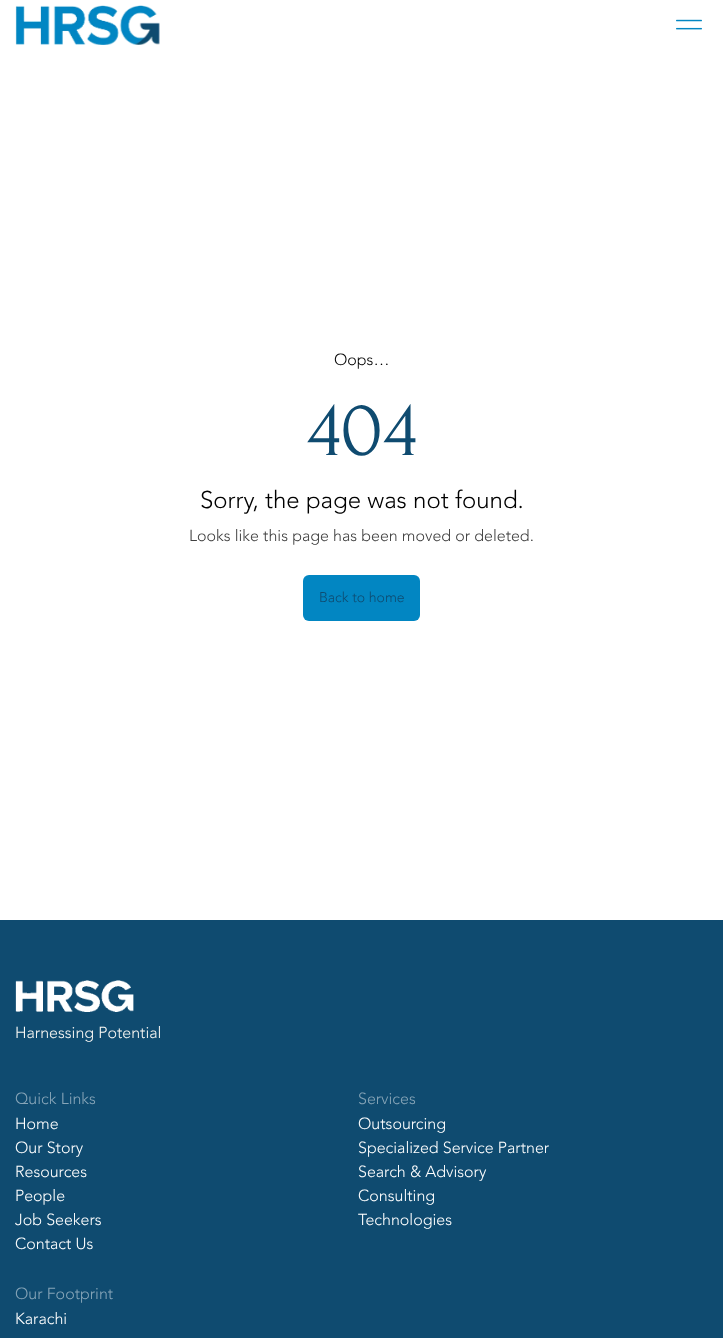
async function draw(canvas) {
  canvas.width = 723;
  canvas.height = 1338;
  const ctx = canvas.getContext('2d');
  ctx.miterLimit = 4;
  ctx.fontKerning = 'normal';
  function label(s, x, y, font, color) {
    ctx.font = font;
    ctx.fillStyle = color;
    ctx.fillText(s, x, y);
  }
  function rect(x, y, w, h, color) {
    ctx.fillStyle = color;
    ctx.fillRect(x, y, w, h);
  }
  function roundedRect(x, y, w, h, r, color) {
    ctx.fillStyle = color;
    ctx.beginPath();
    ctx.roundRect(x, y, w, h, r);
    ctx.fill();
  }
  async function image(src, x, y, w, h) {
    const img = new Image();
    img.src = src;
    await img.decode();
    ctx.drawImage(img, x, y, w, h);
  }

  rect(0, 0, 723, 1338, '#fff');
  await image('assets/img1.png', 15, 5, 145, 40);
  await image('assets/img2.png', 676, 19, 26, 11);
  label('Oops…', 334, 365, '300 16px Avenir', '#000');
  label('404', 307, 455, '80px Forum', '#0f4b70');
  label('Sorry, the page was not found.', 200, 508, '300 24px Avenir', '#000');
  label('Looks like this page has been moved or deleted.', 189, 541, '300 16px Avenir', '#404040');
  roundedRect(303, 575, 117, 46, 6, '#0286c2');
  label('Back to home', 319, 602, '300 14px Avenir', '#0f4b70');
  rect(0, 920, 723, 418, '#0f4b70');
  await image('assets/img3.png', 15, 980, 119, 32);
  label('Harnessing Potential', 15, 1038, '300 16px Avenir', '#f8f7f3');
  label('Quick Links', 15, 1104, '300 16px Avenir', '#87a5b8');
  label('Home', 15, 1129, '300 16px Avenir', '#fff');
  label('Our Story', 15, 1153, '300 16px Avenir', '#fff');
  label('Resources', 15, 1177, '300 16px Avenir', '#fff');
  label('People', 15, 1201, '300 16px Avenir', '#fff');
  label('Job Seekers', 15, 1225, '300 16px Avenir', '#fff');
  label('Contact Us', 15, 1249, '300 16px Avenir', '#fff');
  label('Services', 358, 1104, '300 16px Avenir', '#87a5b8');
  label('Outsourcing', 358, 1129, '300 16px Avenir', '#fff');
  label('Specialized Service Partner', 358, 1153, '300 16px Avenir', '#fff');
  label('Search & Advisory', 358, 1177, '300 16px Avenir', '#fff');
  label('Consulting', 358, 1201, '300 16px Avenir', '#fff');
  label('Technologies', 358, 1225, '300 16px Avenir', '#fff');
  label('Our Footprint', 15, 1299, '300 16px Avenir', '#87a5b8');
  label('Karachi', 15, 1324, '300 16px Avenir', '#fff');
}

draw(document.querySelector('canvas'));
